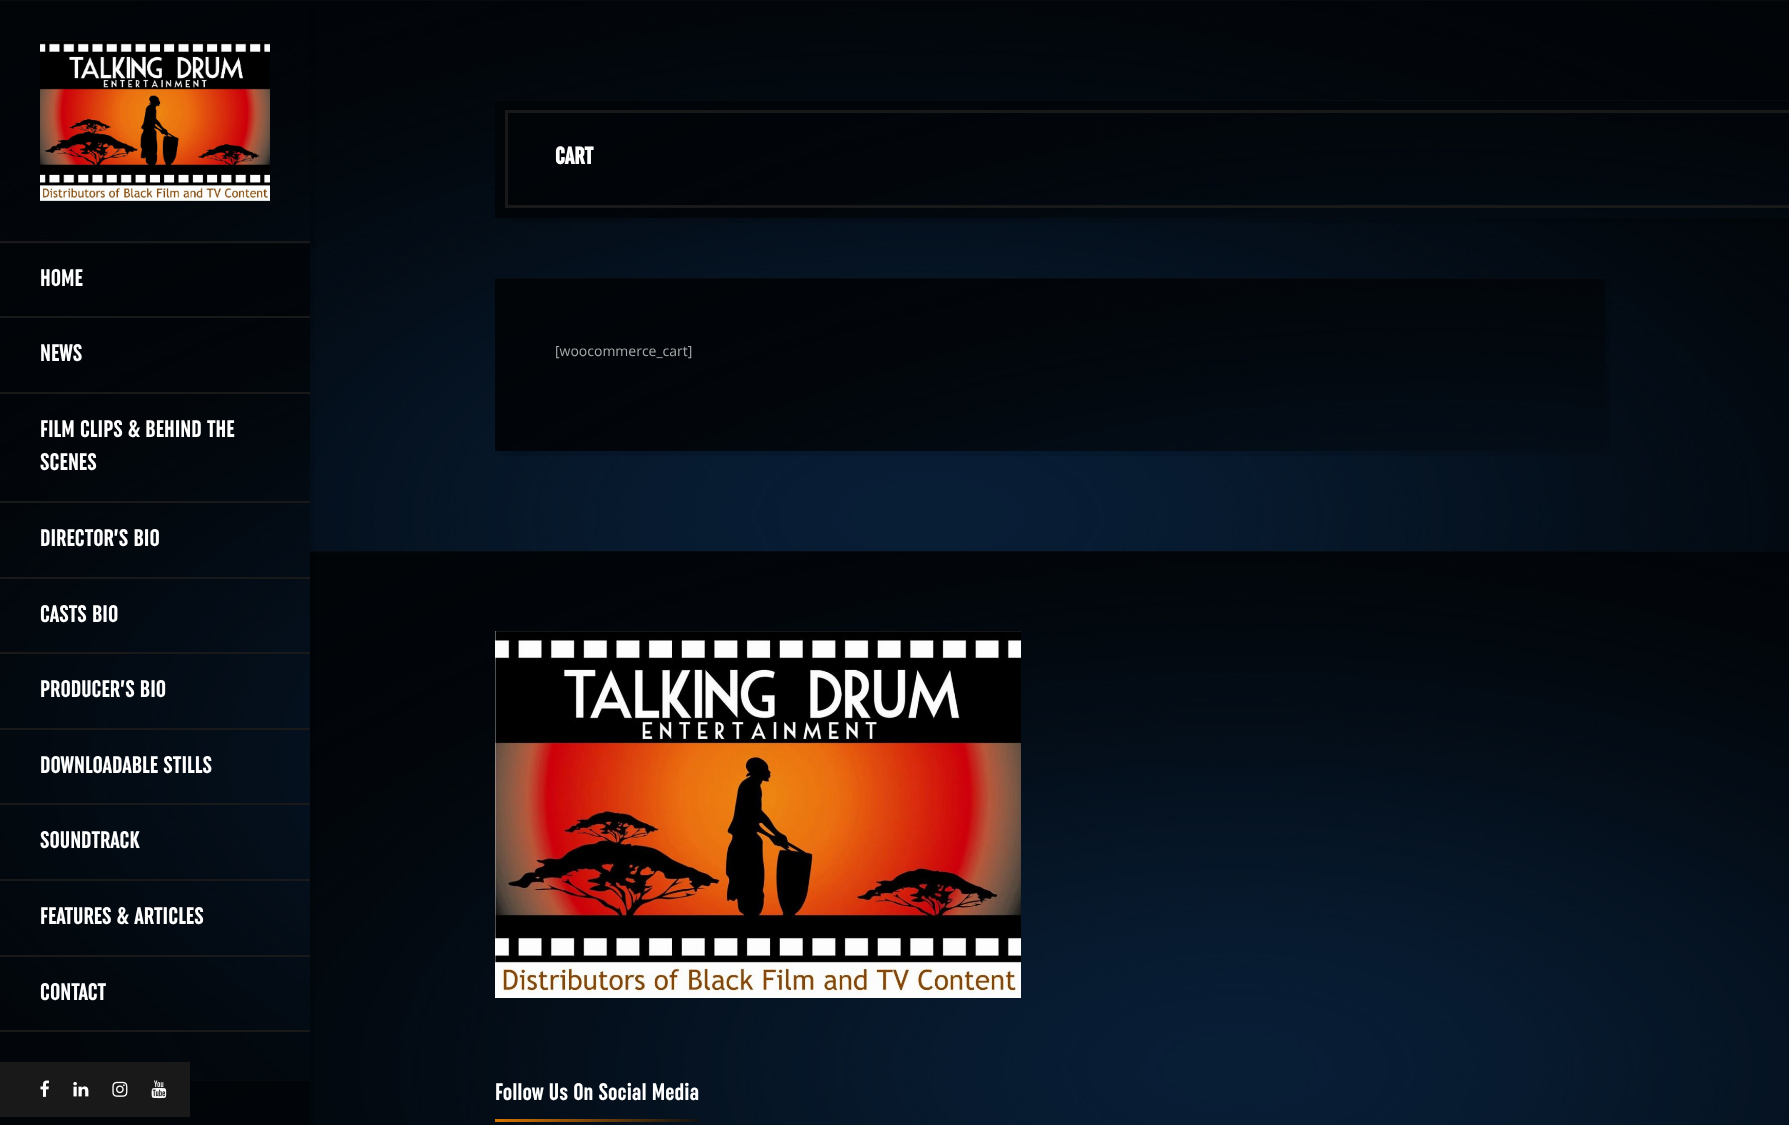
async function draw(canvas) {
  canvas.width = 1789;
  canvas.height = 1125;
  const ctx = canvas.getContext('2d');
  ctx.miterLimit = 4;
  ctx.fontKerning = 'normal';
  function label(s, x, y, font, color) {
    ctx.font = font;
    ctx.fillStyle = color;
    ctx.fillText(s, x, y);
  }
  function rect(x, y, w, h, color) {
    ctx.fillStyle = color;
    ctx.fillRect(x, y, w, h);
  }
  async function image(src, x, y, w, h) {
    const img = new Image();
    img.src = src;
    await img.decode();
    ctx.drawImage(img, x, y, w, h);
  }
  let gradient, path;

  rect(0, 0, 1789, 1125, '#fff');
  await image('assets/img8.png', 310, 0, 1479, 551);
  await image('assets/img11.png', 310, 551, 1479, 574);
  ctx.fillStyle = '#0101011a';
  path = new Path2D('M5 1125V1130H315V5H310V1125Z');
  ctx.fill(path);
  await image('assets/img1.png', 0, 0, 310, 1125);
  await image('assets/img2.png', 40, 40, 230, 161);
  await image('assets/img3.png', 0, 243, 310, 787);
  rect(0, 241, 310, 2, '#191919');
  rect(0, 316, 310, 2, '#191919');
  label('HOME', 40, 286, '24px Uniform', '#fff');
  rect(0, 392, 310, 2, '#191919');
  label('NEWS', 40, 361, '24px Uniform', '#fff');
  rect(0, 501, 310, 2, '#191919');
  label('FILM CLIPS & BEHIND THE', 40, 437, '24px Uniform', '#fff');
  label('SCENES', 40, 470, '24px Uniform', '#fff');
  rect(0, 577, 310, 2, '#191919');
  label('DIRECTOR’S BIO', 40, 546, '24px Uniform', '#fff');
  rect(0, 652, 310, 2, '#191919');
  label('CASTS BIO', 40, 622, '24px Uniform', '#fff');
  rect(0, 728, 310, 2, '#191919');
  label('PRODUCER’S BIO', 40, 697, '24px Uniform', '#fff');
  rect(0, 803, 310, 2, '#191919');
  label('DOWNLOADABLE STILLS', 40, 773, '24px Uniform', '#fff');
  rect(0, 879, 310, 2, '#191919');
  label('SOUNDTRACK', 40, 848, '24px Uniform', '#fff');
  rect(0, 955, 310, 2, '#191919');
  label('FEATURES & ARTICLES', 40, 924, '24px Uniform', '#fff');
  rect(0, 1030, 310, 2, '#191919');
  label('CONTACT', 40, 1000, '24px Uniform', '#fff');
  rect(0, 1062, 190, 55, '#191919');
  await image('assets/img4.png', 40, 1080, 9, 17);
  await image('assets/img5.png', 73, 1082, 16, 15);
  await image('assets/img6.png', 112, 1081, 16, 16);
  await image('assets/img7.png', 151, 1080, 16, 19);
  ctx.fillStyle = '#0101011a';
  path = new Path2D('M500 218V223H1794V105H1789V218Z');
  ctx.fill(path);
  await image('assets/img9.png', 495, 100, 1294, 118);
  ctx.strokeStyle = '#191919';
  ctx.lineWidth = 3;
  ctx.strokeRect(506.5, 111.5, 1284, 95);
  label('CART', 555, 164, 'bold 24px Uniform', '#fff');
  ctx.fillStyle = '#0101011a';
  path = new Path2D('M500 451V456H1610V283H1605V451Z');
  ctx.fill(path);
  await image('assets/img10.png', 495, 278, 1110, 173);
  label('[woocommerce_cart]', 555, 356, '14px Open Sans', '#aaa');
  await image('assets/img12.png', 495, 631, 526, 367);
  label('Follow Us On Social Media', 495, 1100, '24px Uniform', '#fff');
  gradient = ctx.createLinearGradient(495, 1121, 699, 1121);
  gradient.addColorStop(0, '#d77400');
  gradient.addColorStop(1, '#111');
  ctx.fillStyle = gradient;
  ctx.fillRect(495, 1119, 204, 3);
}

draw(document.querySelector('canvas'));
